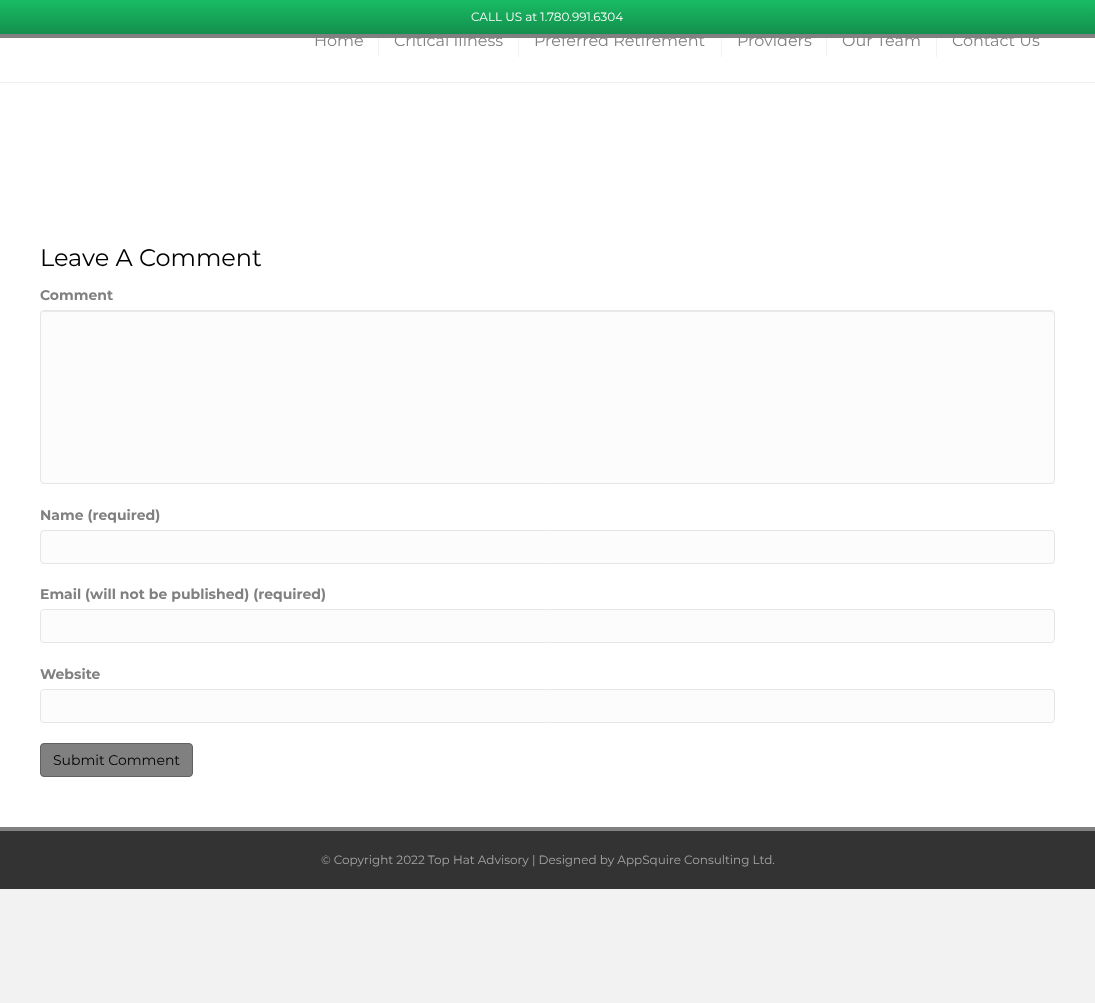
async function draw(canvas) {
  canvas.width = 1095;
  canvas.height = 1003;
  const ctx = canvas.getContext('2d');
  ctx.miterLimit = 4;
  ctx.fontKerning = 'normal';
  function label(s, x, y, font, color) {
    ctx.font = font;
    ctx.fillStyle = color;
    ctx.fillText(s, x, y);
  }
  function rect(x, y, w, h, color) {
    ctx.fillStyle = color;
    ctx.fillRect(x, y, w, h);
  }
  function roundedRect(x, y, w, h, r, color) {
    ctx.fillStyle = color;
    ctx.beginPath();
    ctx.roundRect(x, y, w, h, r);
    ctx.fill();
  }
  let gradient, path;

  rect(0, 0, 1095, 1003, '#f2f2f2');
  gradient = ctx.createLinearGradient(548, 0, 548, 34);
  gradient.addColorStop(0, '#19bc65');
  gradient.addColorStop(1, '#138f4d');
  ctx.fillStyle = gradient;
  ctx.fillRect(0, 0, 1095, 34);
  rect(0, 34, 1095, 4, '#808080');
  label('CALL US at 1.780.991.6304', 471, 21, '12px Montserrat', '#fff');
  rect(0, 38, 1095, 44, '#fff');
  rect(0, 82, 1095, 1, '#eee');
  rect(378, 38, 1, 19, '#f2f2f2');
  label('Home', 314, 46, '16px Montserrat', '#808080');
  rect(518, 38, 1, 19, '#f2f2f2');
  label('Critical Illness', 394, 46, '16px Montserrat', '#808080');
  rect(721, 38, 1, 19, '#f2f2f2');
  label('Preferred Retirement', 534, 46, '16px Montserrat', '#808080');
  rect(826, 38, 1, 19, '#f2f2f2');
  label('Providers', 737, 46, '16px Montserrat', '#808080');
  rect(936, 38, 1, 19, '#f2f2f2');
  label('Our Team', 842, 46, '16px Montserrat', '#808080');
  label('Contact Us', 952, 46, '16px Montserrat', '#808080');
  rect(0, 83, 1095, 744, '#fff');
  label('Leave A Comment', 40, 266, '24px Montserrat', '#000');
  label('Comment', 40, 300, 'bold 14px Montserrat', '#808080');
  roundedRect(40, 310, 1015, 174, 4, '#fcfcfc');
  ctx.fillStyle = '#e9e9e9';
  path = new Path2D('M44 312H1051C1053 312 1054 313 1054 315C1054 313 1053 311 1051 311H44C42 311 41 313 41 315C41 313 42 312 44 312Z');
  ctx.fill(path);
  ctx.beginPath();
  ctx.roundRect(40.5, 310.5, 1014, 173, 3.5);
  ctx.strokeStyle = '#e6e6e6';
  ctx.stroke();
  label('Name (required)', 40, 520, 'bold 14px Montserrat', '#808080');
  ctx.fillStyle = '#fcfcfc';
  ctx.beginPath();
  ctx.roundRect(40.5, 530.5, 1014, 33, 3.5);
  ctx.fill();
  ctx.stroke();
  label('Email (will not be published) (required)', 40, 599, 'bold 14px Montserrat', '#808080');
  ctx.fillStyle = '#fcfcfc';
  ctx.beginPath();
  ctx.roundRect(40.5, 609.5, 1014, 33, 3.5);
  ctx.fill();
  ctx.stroke();
  label('Website', 40, 679, 'bold 14px Montserrat', '#808080');
  ctx.fillStyle = '#fcfcfc';
  ctx.beginPath();
  ctx.roundRect(40.5, 689.5, 1014, 33, 3.5);
  ctx.fill();
  ctx.stroke();
  ctx.fillStyle = '#808080';
  ctx.beginPath();
  ctx.roundRect(40.5, 743.5, 152, 33, 3.5);
  ctx.fill();
  ctx.strokeStyle = '#616161';
  ctx.stroke();
  label('Submit Comment', 53, 765, '14px Montserrat', '#000');
  rect(0, 831, 1095, 58, '#333');
  rect(0, 827, 1095, 4, '#808080');
  label('© Copyright 2022 Top Hat Advisory | Designed by AppSquire Consulting Ltd.', 321, 864, '12px Montserrat', '#a6a6a6');
}

draw(document.querySelector('canvas'));
